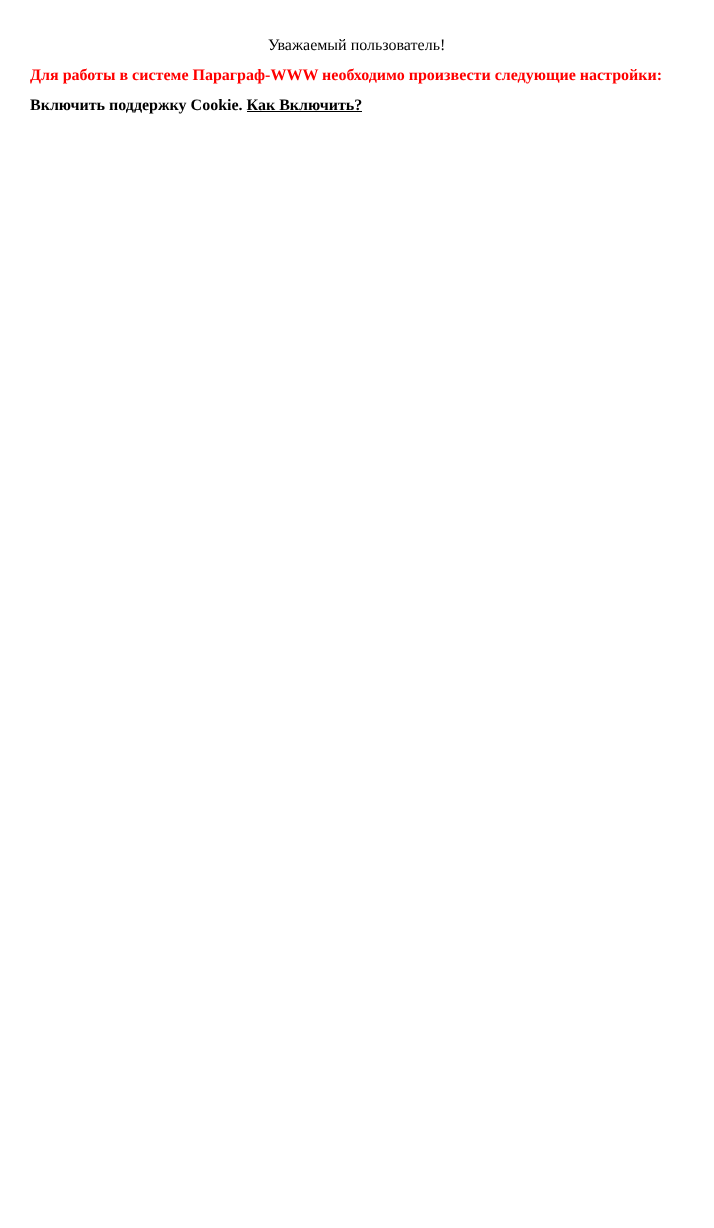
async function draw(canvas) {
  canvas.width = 714;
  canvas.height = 1228;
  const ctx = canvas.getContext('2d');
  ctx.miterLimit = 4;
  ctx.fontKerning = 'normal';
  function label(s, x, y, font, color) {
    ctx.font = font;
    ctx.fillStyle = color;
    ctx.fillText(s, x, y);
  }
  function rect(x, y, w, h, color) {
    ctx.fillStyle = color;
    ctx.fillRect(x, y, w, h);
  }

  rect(0, 0, 714, 1228, '#fff');
  label('Уважаемый пользователь!', 268, 50, '16px Liberation Serif', '#000');
  label('Для работы в системе Параграф-WWW необходимо произвести следующие настройки:', 30, 80, 'bold 16px Liberation Serif', '#f00');
  label('Включить поддержку Cookie. Как Включить?', 30, 110, 'bold 16px Liberation Serif', '#000');
  rect(247, 111, 115, 1, '#000');
}

draw(document.querySelector('canvas'));
